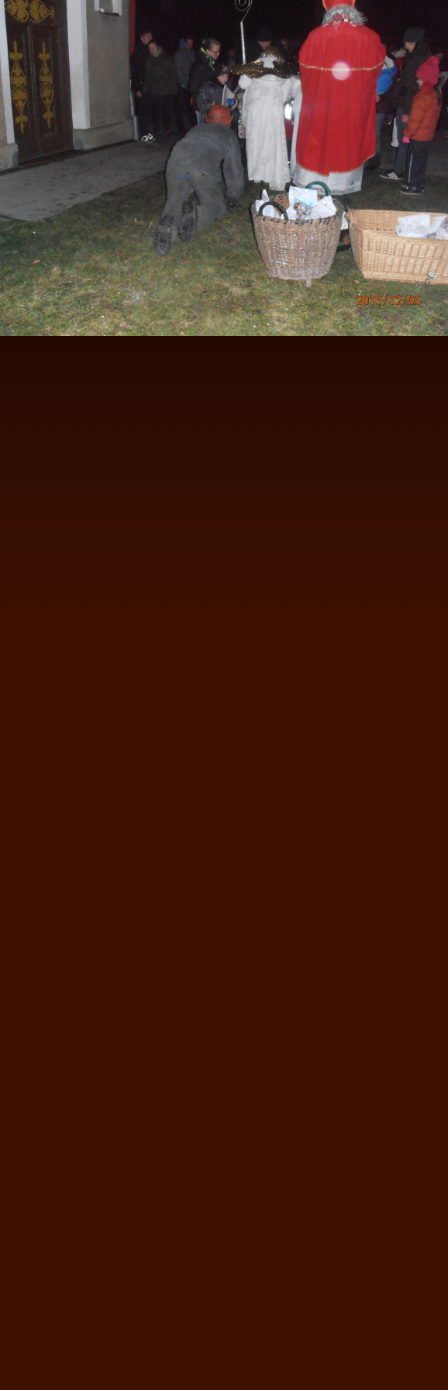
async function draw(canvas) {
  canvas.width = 448;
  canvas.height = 1390;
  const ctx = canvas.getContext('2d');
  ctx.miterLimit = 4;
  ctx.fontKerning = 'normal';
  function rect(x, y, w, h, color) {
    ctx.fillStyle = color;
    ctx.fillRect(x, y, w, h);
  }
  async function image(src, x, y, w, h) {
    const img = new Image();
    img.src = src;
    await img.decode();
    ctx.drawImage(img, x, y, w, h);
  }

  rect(0, 0, 448, 1390, '#401101');
  await image('assets/img1.png', 0, 336, 448, 272);
  await image('assets/img2.png', 0, 0, 448, 336);
}

draw(document.querySelector('canvas'));
